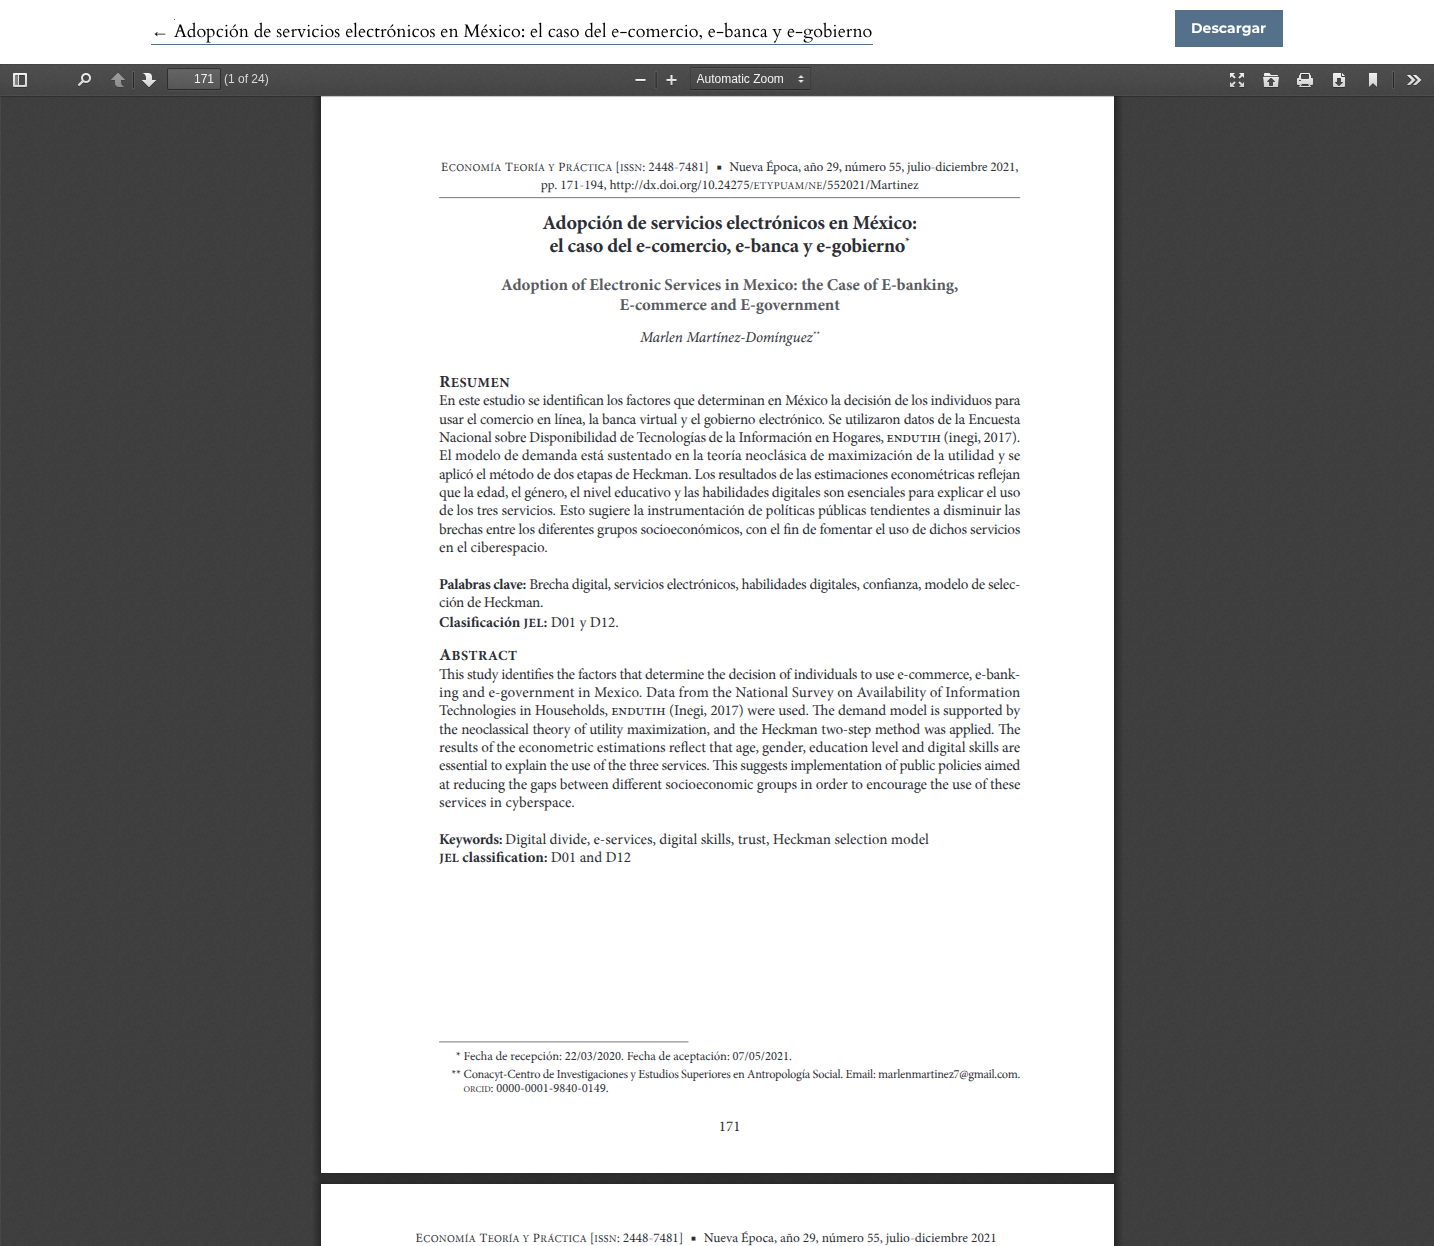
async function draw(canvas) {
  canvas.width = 1434;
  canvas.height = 1246;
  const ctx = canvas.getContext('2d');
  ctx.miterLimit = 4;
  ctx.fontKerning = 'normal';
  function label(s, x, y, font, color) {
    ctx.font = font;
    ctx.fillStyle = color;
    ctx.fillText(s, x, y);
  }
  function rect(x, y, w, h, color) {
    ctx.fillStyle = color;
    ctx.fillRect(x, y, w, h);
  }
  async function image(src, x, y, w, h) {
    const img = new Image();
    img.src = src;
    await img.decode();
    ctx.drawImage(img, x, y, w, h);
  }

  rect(0, 0, 1434, 1246, '#fff');
  label('←', 151, 37, '18px Liberation Serif', '#000');
  rect(151, 44, 722, 1, '#55708a');
  label('Adopción de servicios electrónicos en México: el caso del e-comercio, e-banca y e-gobierno', 174, 37, '18px Cardo', '#000');
  rect(174, 19, 1, 1, '#55708a');
  rect(1175, 10, 108, 37, '#55708a');
  label('Descargar', 1191, 33, 'bold 14px Montserrat', '#fff');
  await image('assets/img1.png', 0, 64, 1434, 1182);
}

draw(document.querySelector('canvas'));
